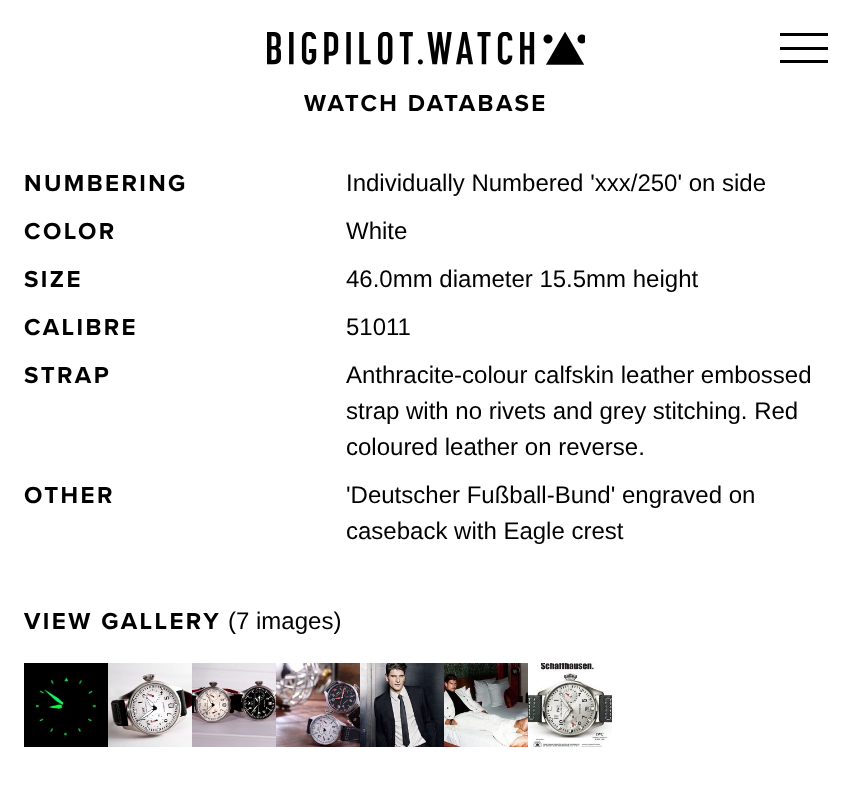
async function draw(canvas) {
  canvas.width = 852;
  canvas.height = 795;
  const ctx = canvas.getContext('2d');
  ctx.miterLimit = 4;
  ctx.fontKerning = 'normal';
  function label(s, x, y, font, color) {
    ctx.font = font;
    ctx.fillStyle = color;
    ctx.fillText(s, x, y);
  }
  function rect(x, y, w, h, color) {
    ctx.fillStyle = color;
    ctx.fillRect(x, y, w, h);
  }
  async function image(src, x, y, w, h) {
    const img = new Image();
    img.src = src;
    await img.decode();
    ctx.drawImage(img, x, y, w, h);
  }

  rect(0, 0, 852, 795, '#fff');
  await image('assets/img1.png', 267, 32, 318, 33);
  rect(780, 33, 48, 3, '#000');
  rect(780, 47, 48, 3, '#000');
  rect(780, 60, 48, 3, '#000');
  ctx.letterSpacing = '2.4px';
  label('WATCH DATABASE', 304, 111, 'bold 24px Proxima Nova', '#000');
  label('NUMBERING', 24, 191, 'bold 24px Proxima Nova', '#000');
  ctx.letterSpacing = '0px';
  label('Individually Numbered \'xxx/250\' on side', 346, 191, '24px Liberation Sans', '#000');
  ctx.letterSpacing = '2.4px';
  label('COLOR', 24, 239, 'bold 24px Proxima Nova', '#000');
  ctx.letterSpacing = '0px';
  label('White', 346, 239, '24px Liberation Sans', '#000');
  ctx.letterSpacing = '2.4px';
  label('SIZE', 24, 287, 'bold 24px Proxima Nova', '#000');
  ctx.letterSpacing = '0px';
  label('46.0mm diameter 15.5mm height', 346, 287, '24px Liberation Sans', '#000');
  ctx.letterSpacing = '2.4px';
  label('CALIBRE', 24, 335, 'bold 24px Proxima Nova', '#000');
  ctx.letterSpacing = '0px';
  label('51011', 346, 335, '24px Liberation Sans', '#000');
  ctx.letterSpacing = '2.4px';
  label('STRAP', 24, 383, 'bold 24px Proxima Nova', '#000');
  ctx.letterSpacing = '0px';
  label('Anthracite-colour calfskin leather embossed', 346, 383, '24px Liberation Sans', '#000');
  label('strap with no rivets and grey stitching. Red', 346, 419, '24px Liberation Sans', '#000');
  label('coloured leather on reverse.', 346, 455, '24px Liberation Sans', '#000');
  ctx.letterSpacing = '2.4px';
  label('OTHER', 24, 503, 'bold 24px Proxima Nova', '#000');
  ctx.letterSpacing = '0px';
  label('\'Deutscher Fußball-Bund\' engraved on', 346, 503, '24px Liberation Sans', '#000');
  label('caseback with Eagle crest', 346, 539, '24px Liberation Sans', '#000');
  ctx.letterSpacing = '2.4px';
  label('VIEW GALLERY', 24, 629, 'bold 24px Proxima Nova', '#000');
  ctx.letterSpacing = '0px';
  label('(7 images)', 228, 629, '24px Liberation Sans', '#000');
  await image('assets/img2.png', 24, 663, 84, 84);
  await image('assets/img3.png', 108, 663, 84, 84);
  await image('assets/img4.png', 192, 663, 84, 84);
  await image('assets/img5.png', 276, 663, 84, 84);
  await image('assets/img6.png', 360, 663, 84, 84);
  await image('assets/img7.png', 444, 663, 84, 84);
  await image('assets/img8.png', 528, 663, 84, 84);
}

draw(document.querySelector('canvas'));
